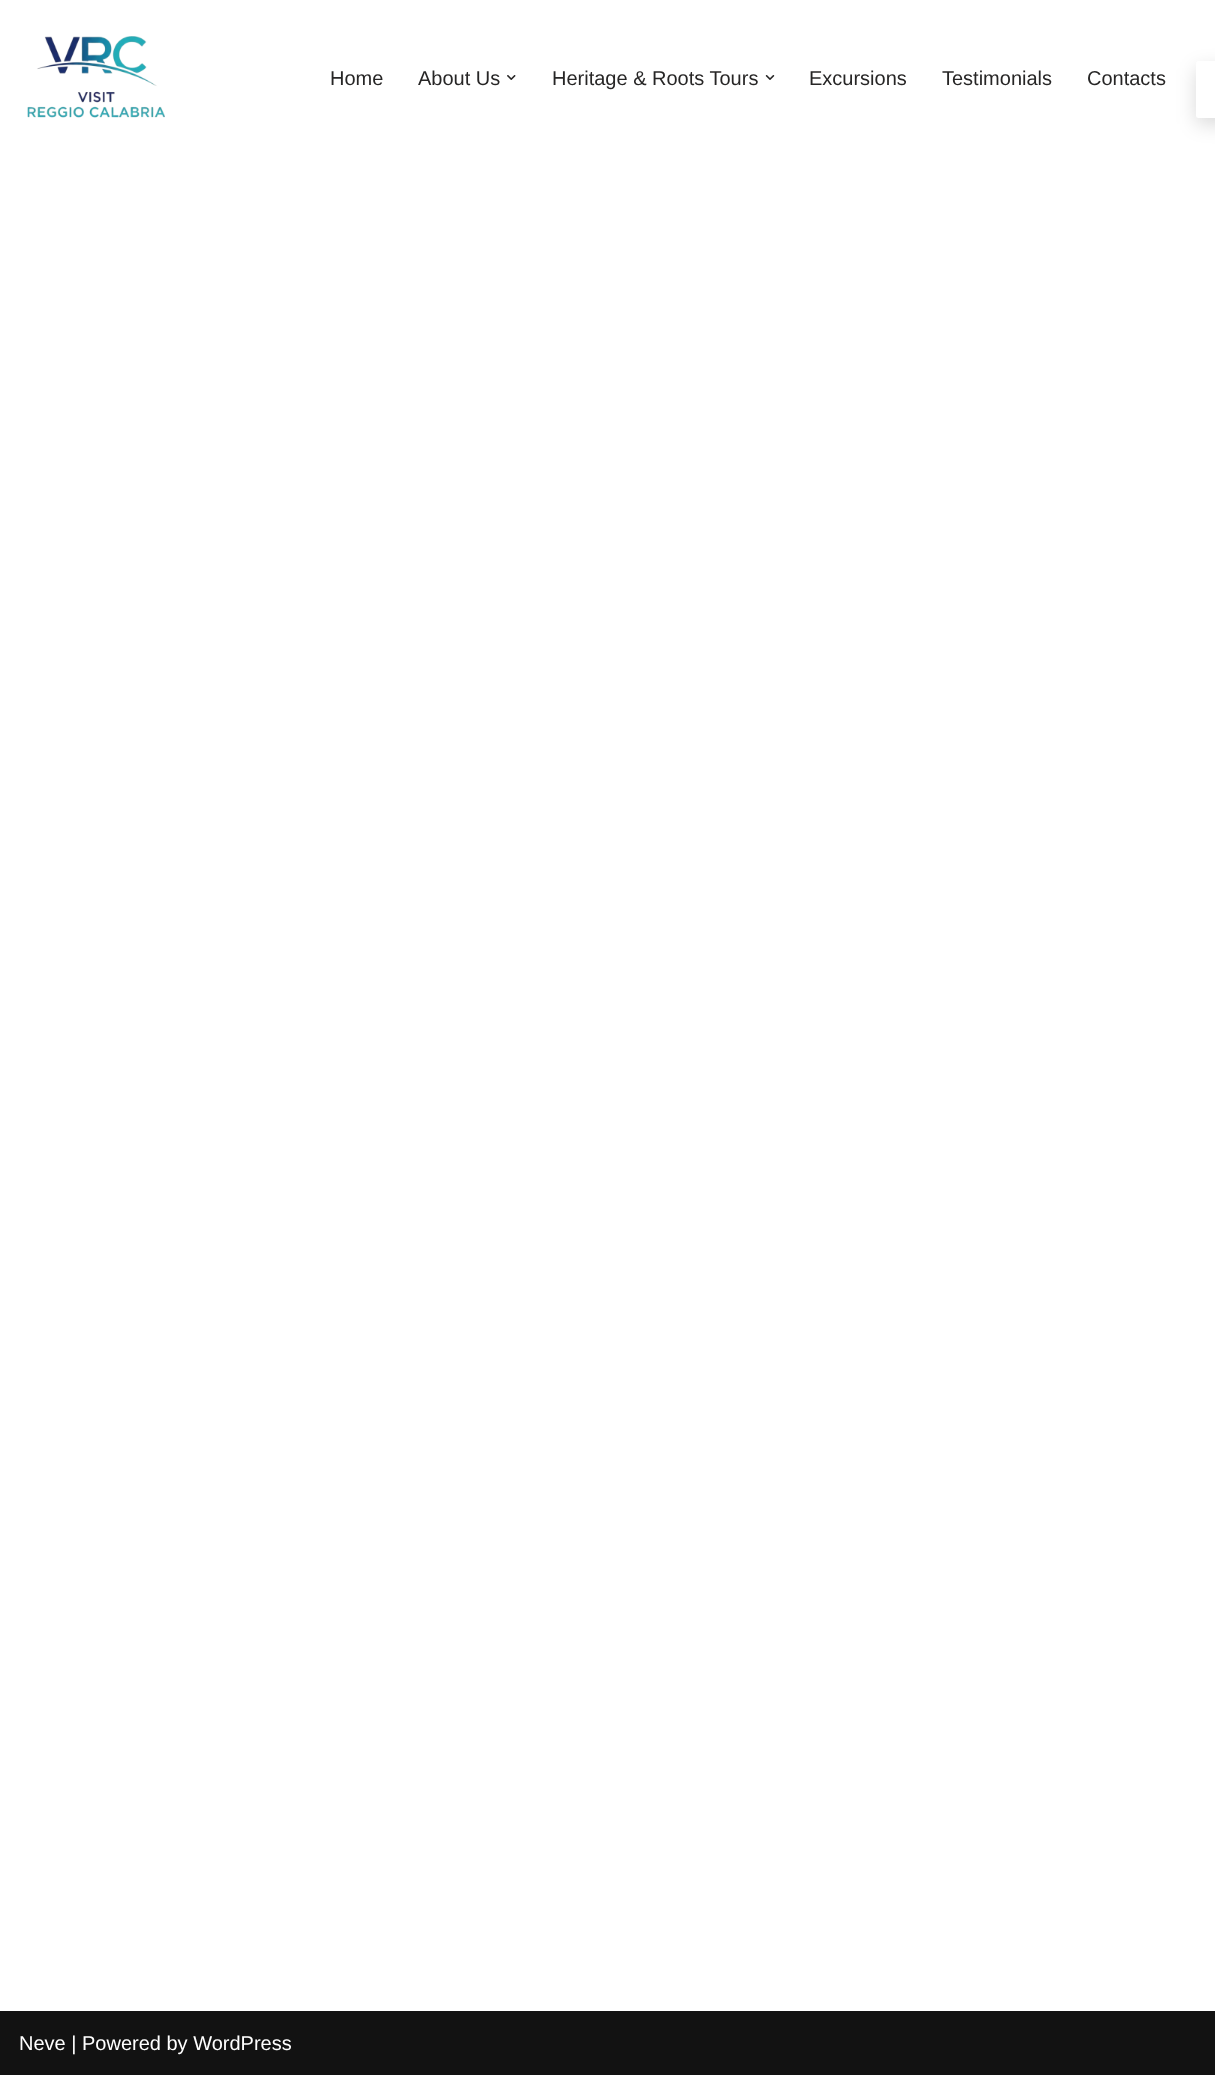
async function draw(canvas) {
  canvas.width = 1215;
  canvas.height = 2075;
  const ctx = canvas.getContext('2d');
  ctx.miterLimit = 4;
  ctx.fontKerning = 'normal';
  function label(s, x, y, font, color) {
    ctx.font = font;
    ctx.fillStyle = color;
    ctx.fillText(s, x, y);
  }
  function rect(x, y, w, h, color) {
    ctx.fillStyle = color;
    ctx.fillRect(x, y, w, h);
  }
  async function image(src, x, y, w, h) {
    const img = new Image();
    img.src = src;
    await img.decode();
    ctx.drawImage(img, x, y, w, h);
  }

  rect(0, 0, 1215, 2075, '#fff');
  await image('assets/img1.png', 27, 36, 138, 82);
  label('Home', 330, 85, '20px Liberation Sans', '#272626');
  label('About Us', 418, 85, '20px Liberation Sans', '#272626');
  await image('assets/img2.png', 507, 75, 9, 5);
  label('Heritage & Roots Tours', 552, 85, '20px Liberation Sans', '#272626');
  await image('assets/img3.png', 765, 75, 10, 5);
  label('Excursions', 809, 85, '20px Liberation Sans', '#272626');
  label('Testimonials', 942, 85, '20px Liberation Sans', '#272626');
  label('Contacts', 1087, 85, '20px Liberation Sans', '#272626');
  ctx.fillStyle = '#00000026';
  ctx.filter = 'blur(9.5px)';
  ctx.beginPath();
  ctx.roundRect(1196, 68, 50, 56, 2.5);
  ctx.fill();
  ctx.filter = 'none';
  ctx.fillStyle = '#fff';
  ctx.beginPath();
  ctx.roundRect(1196, 61, 19, 57, [2.5, 0, 0, 2.5]);
  ctx.fill();
  rect(0, 2011, 1215, 64, '#121212');
  label('Neve | Powered by WordPress', 19, 2050, '20px Liberation Sans', '#fff');
}

draw(document.querySelector('canvas'));
